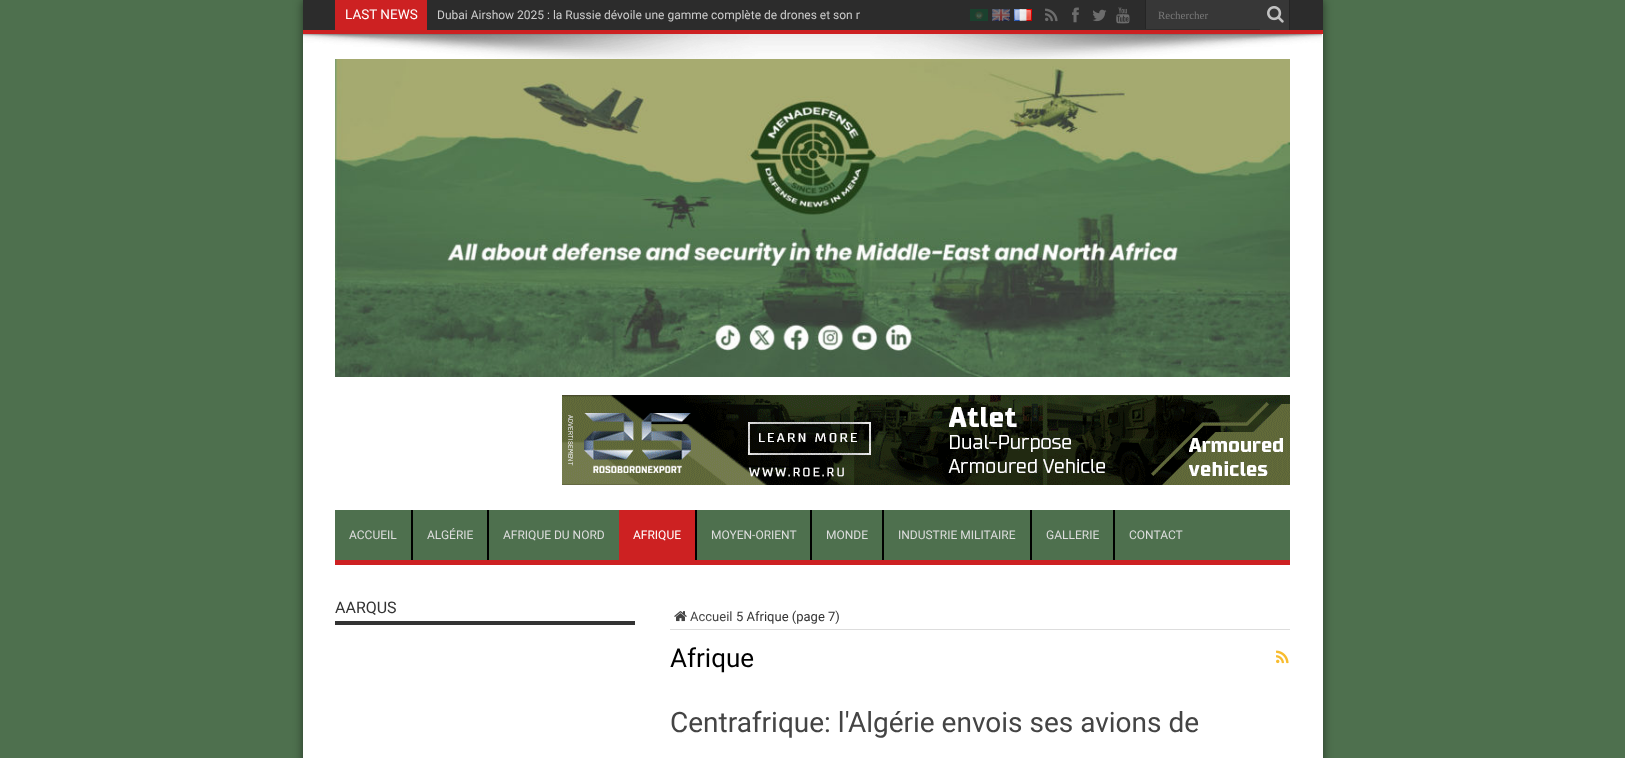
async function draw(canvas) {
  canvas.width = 1625;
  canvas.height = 758;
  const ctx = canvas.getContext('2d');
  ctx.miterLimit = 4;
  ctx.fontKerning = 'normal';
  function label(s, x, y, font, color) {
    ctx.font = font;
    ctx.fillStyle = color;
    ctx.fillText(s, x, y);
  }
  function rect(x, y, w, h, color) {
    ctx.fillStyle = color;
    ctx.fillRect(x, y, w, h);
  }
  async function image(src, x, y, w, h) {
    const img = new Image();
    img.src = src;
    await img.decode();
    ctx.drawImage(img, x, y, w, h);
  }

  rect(0, 0, 1625, 758, '#4e704e');
  ctx.fillStyle = '#00000080';
  ctx.filter = 'blur(5px)';
  ctx.beginPath();
  ctx.rect(303, 0, 1020, 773);
  ctx.fill();
  ctx.filter = 'none';
  rect(303, 34, 1020, 724, '#fff');
  rect(303, 0, 1020, 30, '#2c2c2c');
  rect(303, 30, 1020, 4, '#cd2122');
  rect(335, 0, 92, 30, '#cd2122');
  label('LAST NEWS', 345, 19, '13.5px Roboto', '#fff');
  ctx.save();
  ctx.beginPath();
  ctx.rect(335, 0, 525, 30);
  ctx.clip();
  label('Dubai Airshow 2025 : la Russie dévoile une gamme complète de drones et son n', 437, 19, '12px Roboto', '#ccc');
  ctx.restore();
  await image('assets/img1.png', 970, 9, 18, 12);
  await image('assets/img2.png', 992, 9, 18, 12);
  await image('assets/img3.png', 1014, 9, 18, 12);
  await image('assets/img4.png', 1045, 8, 13, 14);
  await image('assets/img5.png', 1072, 7, 7, 16);
  await image('assets/img6.png', 1092, 9, 15, 13);
  await image('assets/img7.png', 1116, 7, 14, 17);
  rect(1146, 0, 114, 29, '#373737');
  rect(1145, 0, 1, 29, '#252525');
  label('Rechercher', 1158, 19, '11px Liberation Serif', '#787878');
  rect(1260, 0, 29, 30, '#373737');
  rect(1289, 0, 1, 30, '#252525');
  await image('assets/img8.png', 1267, 6, 17, 17);
  await image('assets/img9.png', 303, 34, 1019, 25);
  await image('assets/img10.png', 335, 59, 955, 318);
  await image('assets/img11.png', 562, 395, 728, 90);
  rect(335, 510, 955, 50, '#4e704e');
  rect(335, 560, 955, 5, '#cd2122');
  label('ACCUEIL', 349, 539, '12px Roboto', '#ddd');
  rect(411, 510, 2, 50, '#000');
  label('ALGÉRIE', 427, 539, '12px Roboto', '#ddd');
  rect(487, 510, 2, 50, '#000');
  label('AFRIQUE DU NORD', 503, 539, '12px Roboto', '#ddd');
  rect(619, 510, 76, 50, '#cd2122');
  label('AFRIQUE', 633, 539, '12px Roboto', '#fff');
  rect(695, 510, 2, 50, '#000');
  label('MOYEN-ORIENT', 711, 539, '12px Roboto', '#ddd');
  rect(810, 510, 2, 50, '#000');
  label('MONDE', 826, 539, '12px Roboto', '#ddd');
  rect(882, 510, 2, 50, '#000');
  label('INDUSTRIE MILITAIRE', 898, 539, '12px Roboto', '#ddd');
  rect(1030, 510, 2, 50, '#000');
  label('GALLERIE', 1046, 539, '12px Roboto', '#ddd');
  rect(1113, 510, 2, 50, '#000');
  label('CONTACT', 1129, 539, '12px Roboto', '#ddd');
  rect(335, 621, 300, 4, '#333');
  label('AARQUS', 335, 613, '16px Roboto', '#333');
  rect(670, 629, 620, 1, '#ddd');
  await image('assets/img12.png', 674, 611, 13, 11);
  label('Accueil', 690, 621, '13px Roboto', '#444');
  label('5 Afrique (page 7)', 736, 621, '13px Roboto', '#333');
  label('Afrique', 670, 667, '26px Roboto', '#000');
  await image('assets/img13.png', 1276, 650, 13, 14);
  label('Centrafrique: l\'Algérie envois ses avions de', 670, 732, '28px Roboto', '#444');
}

draw(document.querySelector('canvas'));
